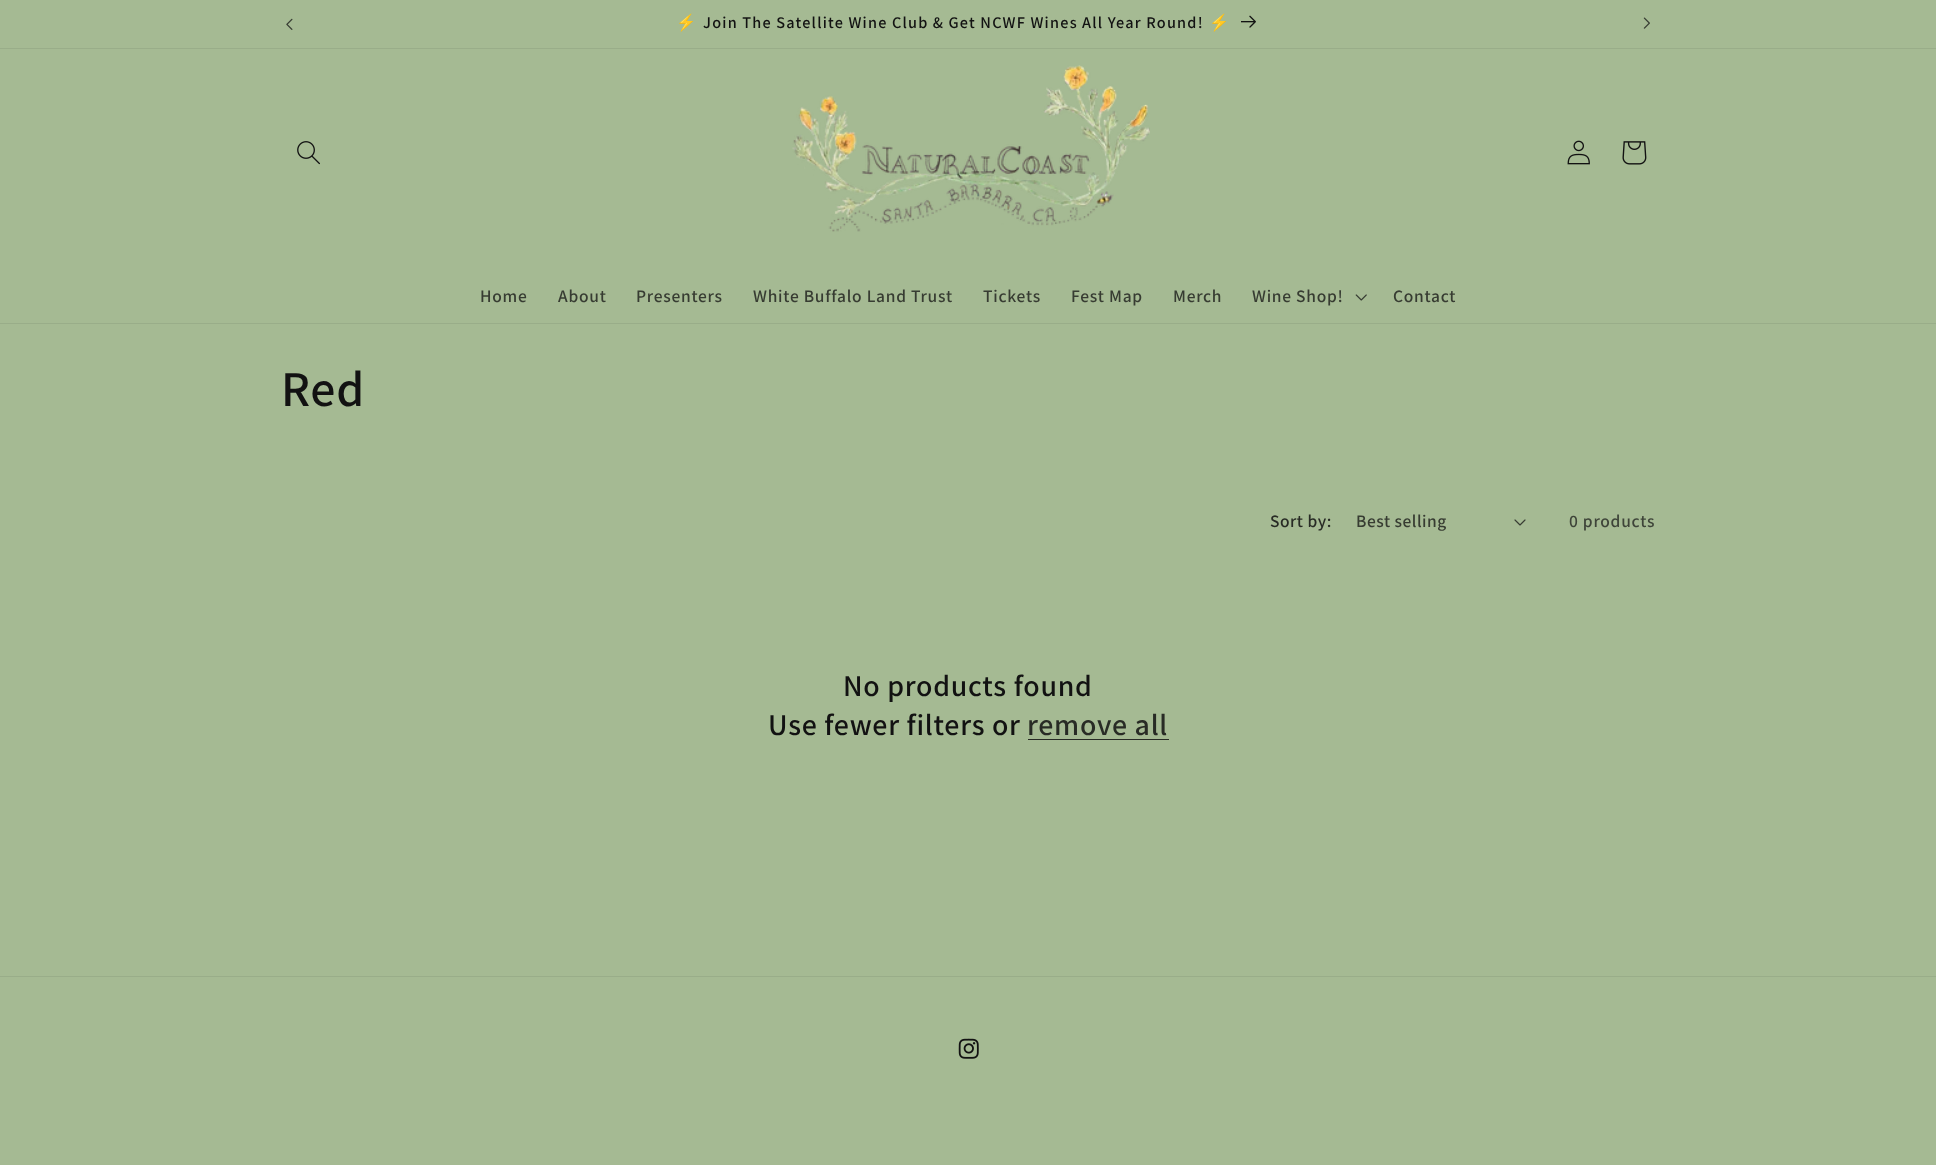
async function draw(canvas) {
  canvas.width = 1936;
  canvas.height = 1165;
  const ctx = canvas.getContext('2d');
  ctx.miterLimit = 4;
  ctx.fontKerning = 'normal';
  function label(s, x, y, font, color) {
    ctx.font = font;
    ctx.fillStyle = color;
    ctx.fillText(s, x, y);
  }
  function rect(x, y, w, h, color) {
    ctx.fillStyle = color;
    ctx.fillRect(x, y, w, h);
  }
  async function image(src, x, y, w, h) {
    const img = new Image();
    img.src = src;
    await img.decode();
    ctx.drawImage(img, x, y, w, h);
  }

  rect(0, 0, 1936, 1165, '#a5ba93');
  rect(0, 48, 1936, 1, '#99ad89');
  await image('assets/img1.png', 286, 18, 7, 12);
  ctx.letterSpacing = '1.25px';
  label('⚡️', 676, 28, 'bold 16.25px Noto Color Emoji', '#121212');
  ctx.wordSpacing = '-0.25px';
  label('Join The Satellite Wine Club & Get NCWF Wines All Year Round!', 703, 28, '600 16.25px Assistant', '#121212');
  ctx.wordSpacing = '0px';
  label('⚡️', 1209, 28, 'bold 16.25px Noto Color Emoji', '#121212');
  await image('assets/img2.png', 1241, 15, 15, 13);
  await image('assets/img3.png', 1643, 17, 7, 12);
  rect(0, 323, 1936, 1, '#99ad89');
  await image('assets/img4.png', 297, 141, 23, 24);
  await image('assets/img5.png', 792, 65, 358, 167);
  await image('assets/img6.png', 1567, 140, 23, 25);
  await image('assets/img7.png', 1622, 141, 25, 24);
  ctx.letterSpacing = '0.75px';
  label('Home', 480, 302, '600 17.5px Assistant', '#373c32');
  label('About', 558, 302, '600 17.5px Assistant', '#373c32');
  label('Presenters', 636, 302, '600 17.5px Assistant', '#373c32');
  label('White Buffalo Land Trust', 753, 302, '600 17.5px Assistant', '#373c32');
  label('Tickets', 983, 302, '600 17.5px Assistant', '#373c32');
  label('Fest Map', 1071, 302, '600 17.5px Assistant', '#373c32');
  label('Merch', 1173, 302, '600 17.5px Assistant', '#373c32');
  label('Wine Shop!', 1252, 302, '600 17.5px Assistant', '#373c32');
  await image('assets/img8.png', 1355, 294, 12, 7);
  label('Contact', 1393, 302, '600 17.5px Assistant', '#373c32');
  label('Red', 281, 406, '600 50px Assistant', '#121212');
  ctx.letterSpacing = '0.5px';
  label('Sort by:', 1270, 527, '600 17.5px Assistant', '#282b25');
  label('Best selling', 1356, 527, '600 17.5px Assistant', '#373c32');
  await image('assets/img9.png', 1514, 519, 12, 7);
  ctx.letterSpacing = '0.75px';
  label('0 products', 1569, 527, '600 17.5px Assistant', '#3e4439');
  label('No products found', 843, 696, '600 30px Assistant', '#121212');
  label('Use fewer filters or', 768, 735, '600 30px Assistant', '#121212');
  label('remove all', 1027, 735, '600 30px Assistant', '#282b25');
  rect(1028, 739, 141, 1, '#282b25');
  rect(0, 976, 1936, 1, '#99ad89');
  await image('assets/img10.png', 958, 1038, 21, 21);
}

draw(document.querySelector('canvas'));
